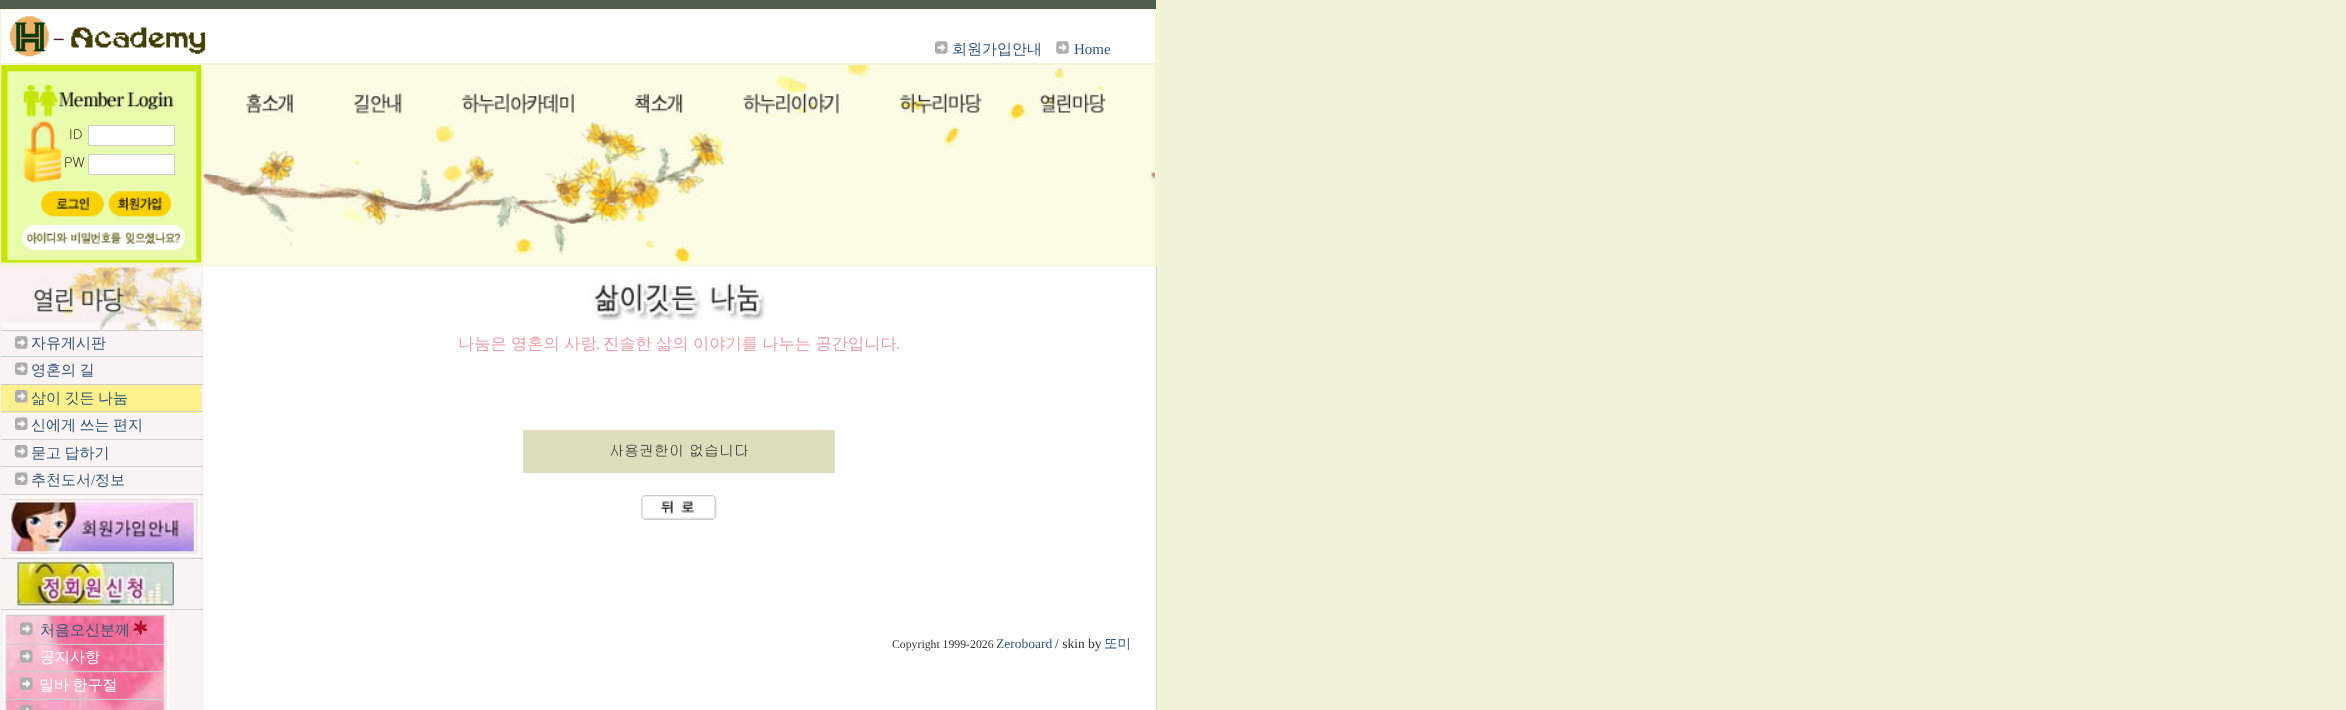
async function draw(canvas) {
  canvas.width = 2346;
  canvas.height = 710;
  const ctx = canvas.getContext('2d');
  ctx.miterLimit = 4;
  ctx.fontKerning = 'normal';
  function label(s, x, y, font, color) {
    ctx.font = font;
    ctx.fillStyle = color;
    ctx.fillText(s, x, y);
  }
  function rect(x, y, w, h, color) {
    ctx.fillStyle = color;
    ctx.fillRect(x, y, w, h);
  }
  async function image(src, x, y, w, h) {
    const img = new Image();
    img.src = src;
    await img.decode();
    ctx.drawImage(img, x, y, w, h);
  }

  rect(0, 0, 2346, 710, '#f3f3d7');
  rect(0, 0, 1156, 9, '#525d51');
  rect(1, 10, 1154, 53, '#fff');
  await image('assets/img1.png', 9, 16, 197, 41);
  await image('assets/img2.png', 935, 41, 13, 13);
  label('회원가입안내', 952, 54, '500 15px WenQuanYi Zen Hei', '#305678');
  await image('assets/img3.png', 1056, 41, 13, 13);
  label('Home', 1074, 54, '15px Liberation Serif', '#305678');
  rect(1, 65, 200, 198, '#e9fcab');
  await image('assets/img4.png', 1, 65, 201, 198);
  label('ID', 69, 139, '13.5px Gulim', '#333');
  ctx.fillStyle = '#fff';
  ctx.beginPath();
  ctx.rect(88.5, 125.5, 86, 20);
  ctx.fill();
  ctx.strokeStyle = '#ccc';
  ctx.stroke();
  label('PW', 64, 167, '13.5px Gulim', '#333');
  ctx.fillStyle = '#fff';
  ctx.beginPath();
  ctx.rect(88.5, 154.5, 86, 20);
  ctx.fill();
  ctx.stroke();
  await image('assets/img5.png', 41, 191, 63, 26);
  await image('assets/img6.png', 108, 191, 64, 26);
  await image('assets/img7.png', 22, 225, 163, 25);
  await image('assets/img8.png', 203, 65, 952, 200);
  await image('assets/img9.png', 203, 66, 949, 199);
  rect(0, 266, 203, 444, '#f9f0f0');
  rect(1, 268, 1, 62, '#faf3f3');
  await image('assets/img10.png', 2, 267, 200, 63);
  rect(1, 331, 200, 53, '#faf3f3');
  rect(1, 330, 202, 1, '#ccc');
  await image('assets/img11.png', 15, 336, 13, 13);
  label('자유게시판', 31, 348, '500 15px WenQuanYi Zen Hei', '#305678');
  rect(1, 356, 202, 1, '#ccc');
  await image('assets/img12.png', 15, 362, 13, 13);
  ctx.wordSpacing = '-1px';
  label('영혼의 길', 31, 375, '500 15px WenQuanYi Zen Hei', '#305678');
  rect(1, 385, 200, 28, '#fcf08c');
  rect(1, 384, 202, 1, '#ccc');
  await image('assets/img13.png', 15, 390, 13, 13);
  label('삶이 깃든 나눔', 31, 403, '500 15px WenQuanYi Zen Hei', '#305678');
  rect(1, 413, 200, 26, '#faf3f3');
  rect(1, 411, 202, 1, '#ccc');
  await image('assets/img12.png', 15, 417, 13, 13);
  label('신에게 쓰는 편지', 31, 430, '500 15px WenQuanYi Zen Hei', '#305678');
  rect(1, 440, 200, 26, '#faf3f3');
  rect(1, 439, 202, 1, '#ccc');
  await image('assets/img14.png', 15, 445, 13, 13);
  label('묻고 답하기', 31, 458, '500 15px WenQuanYi Zen Hei', '#305678');
  rect(1, 467, 200, 27, '#faf3f3');
  rect(1, 466, 202, 1, '#ccc');
  await image('assets/img12.png', 15, 472, 13, 13);
  ctx.wordSpacing = '0px';
  label('추천도서', 31, 485, '500 15px WenQuanYi Zen Hei', '#305678');
  label('/', 91, 485, '15px Liberation Serif', '#305678');
  label('정보', 95, 485, '500 15px WenQuanYi Zen Hei', '#305678');
  rect(1, 495, 200, 63, '#faf3f3');
  rect(1, 494, 202, 1, '#ccc');
  await image('assets/img15.png', 8, 496, 192, 60);
  rect(1, 559, 200, 50, '#faf3f3');
  rect(1, 558, 202, 1, '#ccc');
  await image('assets/img16.png', 15, 560, 161, 48);
  rect(1, 610, 200, 100, '#faf3f3');
  rect(1, 609, 202, 1, '#ccc');
  ctx.strokeStyle = '#fff';
  ctx.strokeRect(3.5, 611.5, 165, 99);
  ctx.fillStyle = '#fbe4ec';
  ctx.beginPath();
  ctx.rect(4.5, 613.5, 163, 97);
  ctx.fill();
  ctx.stroke();
  await image('assets/img17.png', 6, 616, 158, 94);
  rect(6, 615, 159, 1, '#ccc');
  await image('assets/img18.png', 20, 622, 13, 13);
  label('처음오신분께', 40, 635, '500 15px WenQuanYi Zen Hei', '#305678');
  await image('assets/img19.png', 133, 620, 14, 15);
  rect(6, 644, 159, 1, '#ccc');
  await image('assets/img20.png', 20, 650, 13, 13);
  label('공지사항', 40, 662, '500 15px WenQuanYi Zen Hei', '#fff');
  rect(6, 671, 159, 1, '#ccc');
  await image('assets/img21.png', 20, 677, 13, 13);
  ctx.wordSpacing = '-1px';
  label('밀바 한구절', 39, 690, '500 15px WenQuanYi Zen Hei', '#fff');
  rect(6, 699, 159, 1, '#ccc');
  await image('assets/img22.png', 20, 705, 13, 5);
  rect(203, 266, 953, 444, '#fff');
  rect(1156, 266, 1, 444, '#ccc');
  await image('assets/img23.png', 591, 278, 175, 43);
  ctx.wordSpacing = '-0.5px';
  label('나눔은 영혼의 사랑', 458, 349, '500 16.25px WenQuanYi Zen Hei', '#eba0a7');
  ctx.wordSpacing = '0px';
  label('.', 596, 349, '16.25px Liberation Serif', '#eba0a7');
  ctx.wordSpacing = '-0.5px';
  label('진솔한 삶의 이야기를 나누는 공간입니다', 603, 349, '500 16.25px WenQuanYi Zen Hei', '#eba0a7');
  ctx.wordSpacing = '0px';
  label('.', 896, 349, '16.25px Liberation Serif', '#eba0a7');
  rect(523, 430, 312, 43, '#dedebc');
  label('사용권한이 없습니다', 609, 456, '15px Gulim', '#333');
  await image('assets/img24.png', 641, 495, 76, 25);
  label('Copyright 1999-2026', 892, 648, '11.75px Liberation Serif', '#333');
  label('Zeroboard', 996, 648, '13.5px Liberation Serif', '#305678');
  label('/ skin by', 1055, 648, '13.5px Liberation Serif', '#333');
  label('또미', 1104, 648, '500 13.5px WenQuanYi Zen Hei', '#305678');
}

draw(document.querySelector('canvas'));
